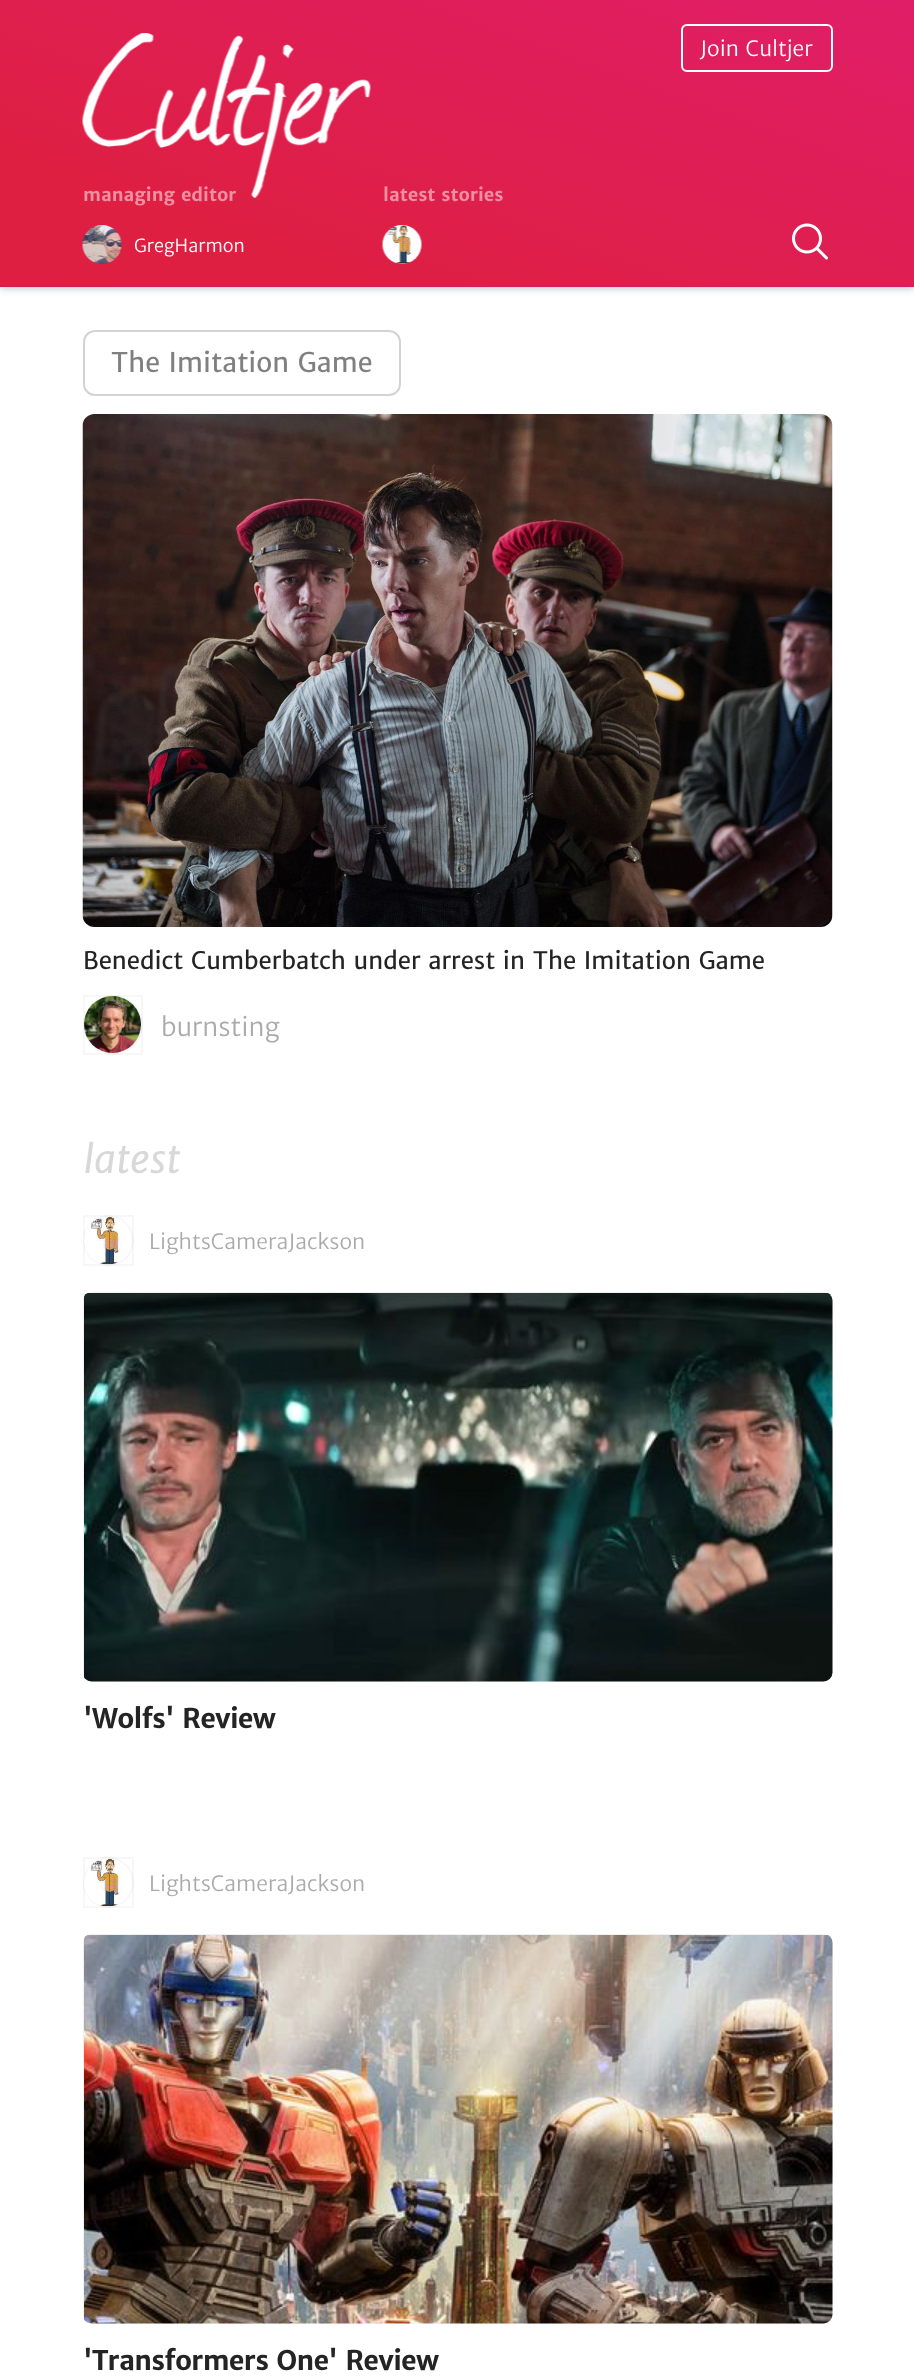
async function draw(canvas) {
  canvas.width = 914;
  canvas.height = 2376;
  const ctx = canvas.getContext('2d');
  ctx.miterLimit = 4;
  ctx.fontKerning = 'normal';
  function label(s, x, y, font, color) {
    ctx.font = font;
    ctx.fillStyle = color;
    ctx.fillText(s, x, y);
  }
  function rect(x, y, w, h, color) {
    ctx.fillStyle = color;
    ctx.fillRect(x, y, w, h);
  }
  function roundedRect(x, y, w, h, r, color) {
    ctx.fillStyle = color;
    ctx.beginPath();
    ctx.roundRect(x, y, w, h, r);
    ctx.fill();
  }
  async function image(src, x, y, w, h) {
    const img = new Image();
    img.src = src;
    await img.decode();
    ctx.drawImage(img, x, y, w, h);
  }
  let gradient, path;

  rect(0, 0, 914, 2376, '#fff');
  ctx.fillStyle = '#373c5070';
  ctx.filter = 'blur(4px)';
  ctx.beginPath();
  ctx.rect(0, 0, 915, 287);
  ctx.fill();
  ctx.filter = 'none';
  gradient = ctx.createLinearGradient(358, 415, 557, -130);
  gradient.addColorStop(0.2, '#de1f41');
  gradient.addColorStop(1, '#e01e68');
  ctx.fillStyle = gradient;
  ctx.fillRect(0, 0, 914, 285);
  gradient = ctx.createLinearGradient(358, 700, 557, 155);
  gradient.addColorStop(0.2, '#de1f41');
  gradient.addColorStop(1, '#e01e68');
  ctx.fillStyle = gradient;
  ctx.fillRect(0, 285, 914, 2);
  rect(0, 285, 914, 2, '#32323214');
  await image('assets/img1.png', 82, 33, 289, 165);
  ctx.beginPath();
  ctx.roundRect(682, 25, 150, 46, 5);
  ctx.strokeStyle = '#fff';
  ctx.lineWidth = 2;
  ctx.stroke();
  label('Join Cultjer', 700, 56, '21px Merriweather Sans', '#fff');
  label('managing editor', 83, 201, 'bold 18px Merriweather Sans', '#ef8fa1');
  await image('assets/img2.png', 82, 225, 40, 39);
  label('GregHarmon', 134, 252, '18px Merriweather Sans', '#fff');
  label('latest stories', 383, 201, 'bold 18px Merriweather Sans', '#ef8fa1');
  await image('assets/img3.png', 382, 225, 40, 39);
  await image('assets/img4.png', 792, 223, 36, 37);
  ctx.beginPath();
  ctx.roundRect(84, 331, 316, 64, 11);
  ctx.strokeStyle = '#d3d3d3';
  ctx.stroke();
  label('The Imitation Game', 111, 372, '27px "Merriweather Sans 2"', '#808080');
  await image('assets/img5.png', 82, 414, 751, 513);
  label('Benedict Cumberbatch under arrest in The Imitation Game', 83, 969, '24px "Merriweather Sans 2"', '#242424');
  ctx.fillStyle = '#f7f7f7';
  ctx.beginPath();
  ctx.arc(113, 1025, 30, 0, 2 * Math.PI);
  ctx.fill();
  ctx.strokeStyle = '#00000008';
  ctx.strokeRect(84, 996, 58, 58);
  await image('assets/img6.png', 84, 996, 57, 57);
  label('burnsting', 161, 1036, '25.5px Merriweather Sans', '#aaa');
  label('latest', 83, 1173, 'italic 39px Merriweather Sans', '#d8d8d8');
  ctx.fillStyle = '#f7f7f7';
  ctx.beginPath();
  ctx.arc(108.5, 1240.5, 25.5, 0, 2 * Math.PI);
  ctx.fill();
  ctx.strokeRect(84, 1216, 49, 49);
  await image('assets/img7.png', 84, 1216, 48, 49);
  label('LightsCameraJackson', 149, 1249, '21px Merriweather Sans', '#aaa');
  roundedRect(83, 1292, 750, 390, 9, '#f8f8f8');
  ctx.fillStyle = '#00000008';
  path = new Path2D('M89 1294H830C828 1293 826 1292 824 1292H92C87 1292 83 1296 83 1301V1673C83 1675 84 1677 85 1679V1298C85 1296 87 1294 89 1294Z');
  ctx.fill(path);
  await image('assets/img8.png', 84, 1293, 749, 389);
  ctx.letterSpacing = '-0.8px';
  label('\'Wolfs\' Review', 83, 1728, 'bold 27px Merriweather Sans', '#242424');
  ctx.fillStyle = '#f7f7f7';
  ctx.beginPath();
  ctx.arc(108.5, 1882.5, 25.5, 0, 2 * Math.PI);
  ctx.fill();
  ctx.strokeRect(84, 1858, 49, 49);
  await image('assets/img9.png', 84, 1858, 48, 49);
  ctx.letterSpacing = '0px';
  label('LightsCameraJackson', 149, 1891, '21px Merriweather Sans', '#aaa');
  roundedRect(83, 1934, 750, 390, 9, '#f8f8f8');
  ctx.fillStyle = '#00000008';
  path = new Path2D('M89 1936H830C828 1935 826 1934 824 1934H92C87 1934 83 1938 83 1943V2315C83 2317 84 2319 85 2321V1940C85 1938 87 1936 89 1936Z');
  ctx.fill(path);
  await image('assets/img10.png', 84, 1935, 749, 389);
  ctx.letterSpacing = '-0.8px';
  label('\'Transformers One\' Review', 83, 2370, 'bold 27px Merriweather Sans', '#242424');
}

draw(document.querySelector('canvas'));
